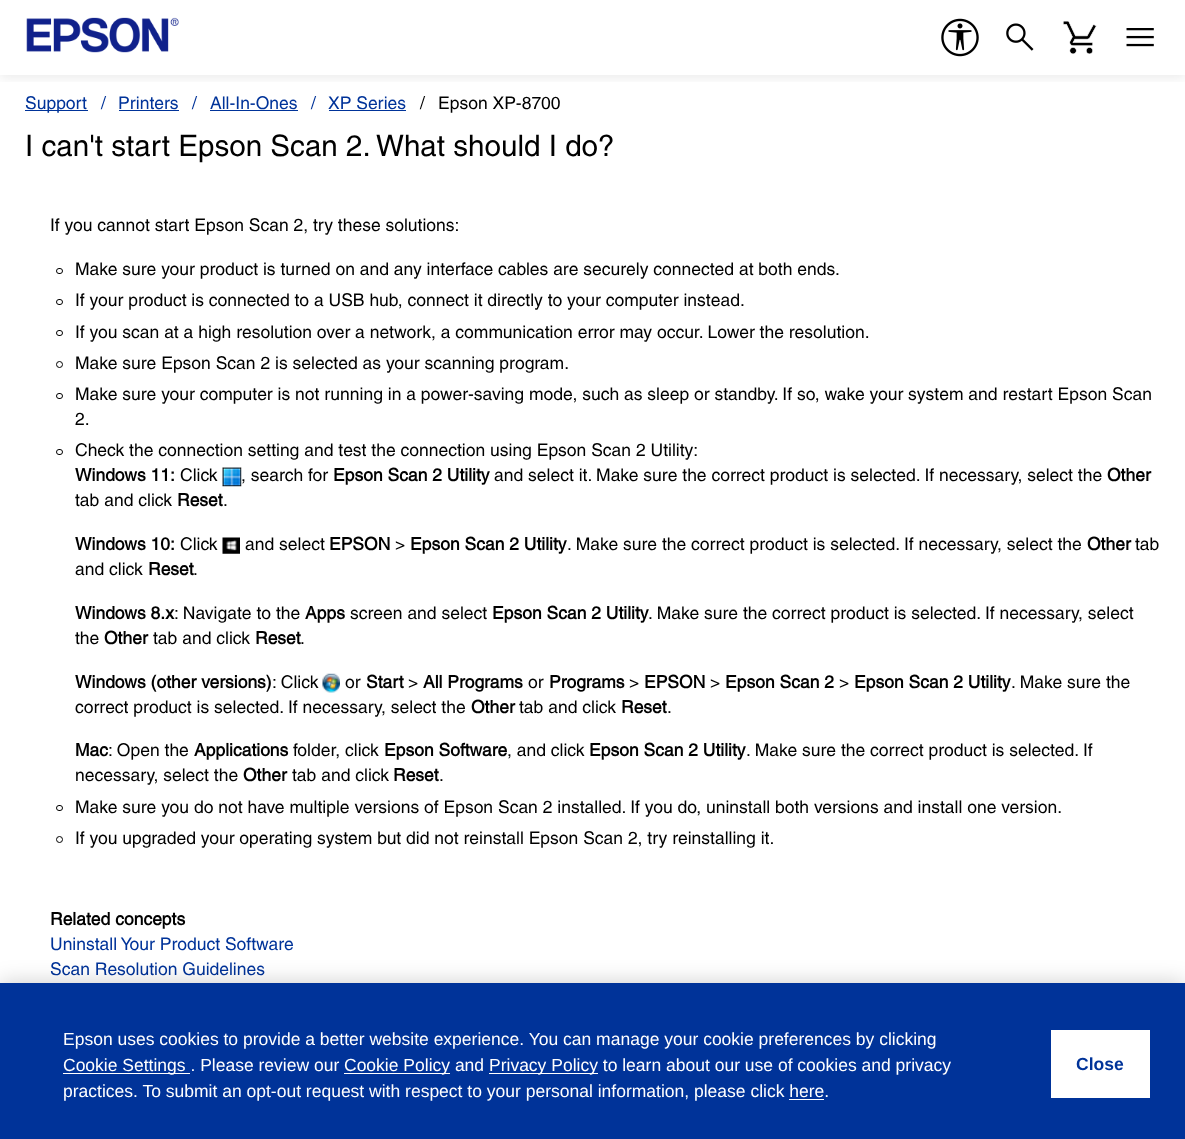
async function draw(canvas) {
  canvas.width = 1185;
  canvas.height = 1139;
  const ctx = canvas.getContext('2d');
  ctx.miterLimit = 4;
  ctx.fontKerning = 'normal';
  function label(s, x, y, font, color) {
    ctx.font = font;
    ctx.fillStyle = color;
    ctx.fillText(s, x, y);
  }
  function rect(x, y, w, h, color) {
    ctx.fillStyle = color;
    ctx.fillRect(x, y, w, h);
  }
  async function image(src, x, y, w, h) {
    const img = new Image();
    img.src = src;
    await img.decode();
    ctx.drawImage(img, x, y, w, h);
  }

  rect(0, 0, 1185, 1139, '#fff');
  ctx.save();
  ctx.beginPath();
  ctx.rect(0, 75, 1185, 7);
  ctx.clip();
  ctx.fillStyle = '#00000014';
  ctx.filter = 'blur(6px)';
  ctx.beginPath();
  ctx.rect(0, 3, 1185, 75);
  ctx.fill();
  ctx.filter = 'none';
  ctx.restore();
  await image('assets/img1.png', 26, 17, 153, 36);
  await image('assets/img2.png', 941, 18, 38, 39);
  await image('assets/img3.png', 1006, 23, 28, 28);
  await image('assets/img4.png', 1063, 21, 34, 33);
  await image('assets/img5.png', 1126, 28, 28, 19);
  rect(25, 110, 63, 1, '#039');
  label('Support', 25, 109, '17.5px Helvetica', '#039');
  label('/', 101, 109, '17.5px Helvetica', '#039');
  label('Printers', 118, 109, '17.5px Helvetica', '#039');
  rect(119, 110, 60, 1, '#039');
  label('/', 192, 109, '17.5px Helvetica', '#039');
  label('All-In-Ones', 210, 109, '17.5px Helvetica', '#039');
  rect(210, 110, 88, 1, '#039');
  label('/', 311, 109, '17.5px Helvetica', '#039');
  label('XP Series', 328, 109, '17.5px Helvetica', '#039');
  rect(329, 110, 77, 1, '#039');
  label('/', 420, 109, '17.5px Helvetica', '#000');
  label('Epson XP-8700', 438, 109, '17.5px Helvetica', '#000');
  label('I can\'t start Epson Scan 2. What should I do?', 25, 156, '29.6px Helvetica', '#000');
  label('If you cannot start Epson Scan 2, try these solutions:', 50, 231, '17.5px Helvetica', '#000');
  ctx.beginPath();
  ctx.roundRect(56.5, 268.5, 6, 5, 2.5);
  ctx.strokeStyle = '#000';
  ctx.stroke();
  label('Make sure your product is turned on and any interface cables are securely connected at both ends.', 75, 275, '17.5px Helvetica', '#000');
  ctx.beginPath();
  ctx.roundRect(56.5, 299.5, 6, 5, 2.5);
  ctx.stroke();
  label('If your product is connected to a USB hub, connect it directly to your computer instead.', 75, 306, '17.5px Helvetica', '#000');
  ctx.beginPath();
  ctx.roundRect(56.5, 330.5, 6, 5, 2.5);
  ctx.stroke();
  label('If you scan at a high resolution over a network, a communication error may occur. Lower the resolution.', 75, 338, '17.5px Helvetica', '#000');
  ctx.beginPath();
  ctx.arc(59.5, 364.5, 3, 0, 2 * Math.PI);
  ctx.stroke();
  label('Make sure Epson Scan 2 is selected as your scanning program.', 75, 369, '17.5px Helvetica', '#000');
  ctx.beginPath();
  ctx.roundRect(56.5, 393.5, 6, 5, 2.5);
  ctx.stroke();
  label('Make sure your computer is not running in a power-saving mode, such as sleep or standby. If so, wake your system and restart Epson Scan', 75, 400, '17.5px Helvetica', '#000');
  label('2.', 75, 425, '17.5px Helvetica', '#000');
  ctx.beginPath();
  ctx.roundRect(56.5, 449.5, 6, 5, 2.5);
  ctx.stroke();
  label('Check the connection setting and test the connection using Epson Scan 2 Utility:', 75, 456, '17.5px Helvetica', '#000');
  label('Windows 11:', 75, 481, 'bold 17.5px Helvetica', '#000');
  label('Click', 180, 481, '17.5px Helvetica', '#000');
  await image('assets/img6.png', 222, 467, 20, 20);
  label(', search for', 241, 481, '17.5px Helvetica', '#000');
  label('Epson Scan 2 Utility', 333, 481, 'bold 17.5px Helvetica', '#000');
  label('and select it. Make sure the correct product is selected. If necessary, select the', 494, 481, '17.5px Helvetica', '#000');
  label('Other', 1107, 481, 'bold 17.5px Helvetica', '#000');
  label('tab and click', 75, 506, '17.5px Helvetica', '#000');
  label('Reset', 177, 506, 'bold 17.5px Helvetica', '#000');
  label('.', 223, 506, '17.5px Helvetica', '#000');
  label('Windows 10:', 75, 550, 'bold 17.5px Helvetica', '#000');
  label('Click', 180, 550, '17.5px Helvetica', '#000');
  await image('assets/img7.png', 222, 537, 18, 17);
  label('and select', 245, 550, '17.5px Helvetica', '#000');
  label('EPSON', 329, 550, 'bold 17.5px Helvetica', '#000');
  label('>', 395, 550, '17.5px Helvetica', '#000');
  label('Epson Scan 2 Utility', 410, 550, 'bold 17.5px Helvetica', '#000');
  label('. Make sure the correct product is selected. If necessary, select the', 567, 550, '17.5px Helvetica', '#000');
  label('Other', 1087, 550, 'bold 17.5px Helvetica', '#000');
  label('tab', 1135, 550, '17.5px Helvetica', '#000');
  label('and click', 75, 575, '17.5px Helvetica', '#000');
  label('Reset', 148, 575, 'bold 17.5px Helvetica', '#000');
  label('.', 193, 575, '17.5px Helvetica', '#000');
  label('Windows 8.x', 75, 619, 'bold 17.5px Helvetica', '#000');
  label(': Navigate to the', 174, 619, '17.5px Helvetica', '#000');
  label('Apps', 305, 619, 'bold 17.5px Helvetica', '#000');
  label('screen and select', 350, 619, '17.5px Helvetica', '#000');
  label('Epson Scan 2 Utility', 492, 619, 'bold 17.5px Helvetica', '#000');
  label('. Make sure the correct product is selected. If necessary, select', 648, 619, '17.5px Helvetica', '#000');
  label('the', 75, 644, '17.5px Helvetica', '#000');
  label('Other', 104, 644, 'bold 17.5px Helvetica', '#000');
  label('tab and click', 153, 644, '17.5px Helvetica', '#000');
  label('Reset', 255, 644, 'bold 17.5px Helvetica', '#000');
  label('.', 300, 644, '17.5px Helvetica', '#000');
  label('Windows (other versions)', 75, 688, 'bold 17.5px Helvetica', '#000');
  label(': Click', 272, 688, '17.5px Helvetica', '#000');
  await image('assets/img8.png', 322, 673, 18, 20);
  label('or', 345, 688, '17.5px Helvetica', '#000');
  label('Start', 366, 688, 'bold 17.5px Helvetica', '#000');
  label('>', 408, 688, '17.5px Helvetica', '#000');
  label('All Programs', 423, 688, 'bold 17.5px Helvetica', '#000');
  label('or', 528, 688, '17.5px Helvetica', '#000');
  label('Programs', 549, 688, 'bold 17.5px Helvetica', '#000');
  label('>', 629, 688, '17.5px Helvetica', '#000');
  label('EPSON', 644, 688, 'bold 17.5px Helvetica', '#000');
  label('>', 710, 688, '17.5px Helvetica', '#000');
  label('Epson Scan 2', 725, 688, 'bold 17.5px Helvetica', '#000');
  label('>', 839, 688, '17.5px Helvetica', '#000');
  label('Epson Scan 2 Utility', 854, 688, 'bold 17.5px Helvetica', '#000');
  label('. Make sure the', 1011, 688, '17.5px Helvetica', '#000');
  label('correct product is selected. If necessary, select the', 75, 713, '17.5px Helvetica', '#000');
  label('Other', 471, 713, 'bold 17.5px Helvetica', '#000');
  label('tab and click', 519, 713, '17.5px Helvetica', '#000');
  label('Reset', 621, 713, 'bold 17.5px Helvetica', '#000');
  label('.', 667, 713, '17.5px Helvetica', '#000');
  label('Mac', 75, 756, 'bold 17.5px Helvetica', '#000');
  label(': Open the', 108, 756, '17.5px Helvetica', '#000');
  label('Applications', 194, 756, 'bold 17.5px Helvetica', '#000');
  label('folder, click', 293, 756, '17.5px Helvetica', '#000');
  label('Epson Software', 384, 756, 'bold 17.5px Helvetica', '#000');
  label(', and click', 507, 756, '17.5px Helvetica', '#000');
  label('Epson Scan 2 Utility', 589, 756, 'bold 17.5px Helvetica', '#000');
  label('. Make sure the correct product is selected. If', 746, 756, '17.5px Helvetica', '#000');
  label('necessary, select the', 75, 781, '17.5px Helvetica', '#000');
  label('Other', 243, 781, 'bold 17.5px Helvetica', '#000');
  label('tab and click', 292, 781, '17.5px Helvetica', '#000');
  label('Reset', 393, 781, 'bold 17.5px Helvetica', '#000');
  label('.', 439, 781, '17.5px Helvetica', '#000');
  ctx.beginPath();
  ctx.roundRect(56.5, 805.5, 6, 5, 2.5);
  ctx.stroke();
  label('Make sure you do not have multiple versions of Epson Scan 2 installed. If you do, uninstall both versions and install one version.', 75, 813, '17.5px Helvetica', '#000');
  ctx.beginPath();
  ctx.arc(59.5, 839.5, 3, 0, 2 * Math.PI);
  ctx.stroke();
  label('If you upgraded your operating system but did not reinstall Epson Scan 2, try reinstalling it.', 75, 844, '17.5px Helvetica', '#000');
  label('Related concepts', 50, 925, 'bold 17.5px Helvetica', '#000');
  label('Uninstall Your Product Software', 50, 950, '17.5px Helvetica', '#039');
  label('Scan Resolution Guidelines', 50, 975, '17.5px Helvetica', '#039');
  ctx.fillStyle = '#00000033';
  ctx.filter = 'blur(11px)';
  ctx.beginPath();
  ctx.rect(0, 983, 1185, 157);
  ctx.fill();
  ctx.filter = 'none';
  rect(0, 983, 1185, 156, '#039');
  label('Epson uses cookies to provide a better website experience. You can manage your cookie preferences by clicking', 63, 1045, '17.5px Liberation Sans', '#fff');
  rect(63, 1073, 127, 1, '#fff');
  label('Cookie Settings . Please review our', 63, 1071, '17.5px Liberation Sans', '#fff');
  rect(344, 1073, 106, 1, '#fff');
  label('Cookie Policy and', 344, 1071, '17.5px Liberation Sans', '#fff');
  rect(489, 1073, 109, 1, '#fff');
  label('Privacy Policy to learn about our use of cookies and privacy', 489, 1071, '17.5px Liberation Sans', '#fff');
  label('practices. To submit an opt-out request with respect to your personal information, please click here.', 63, 1097, '17.5px Liberation Sans', '#fff');
  rect(789, 1099, 35, 1, '#fff');
  rect(1051, 1030, 99, 68, '#fff');
  label('Close', 1076, 1070, 'bold 17.5px Liberation Sans', '#039');
}

draw(document.querySelector('canvas'));
